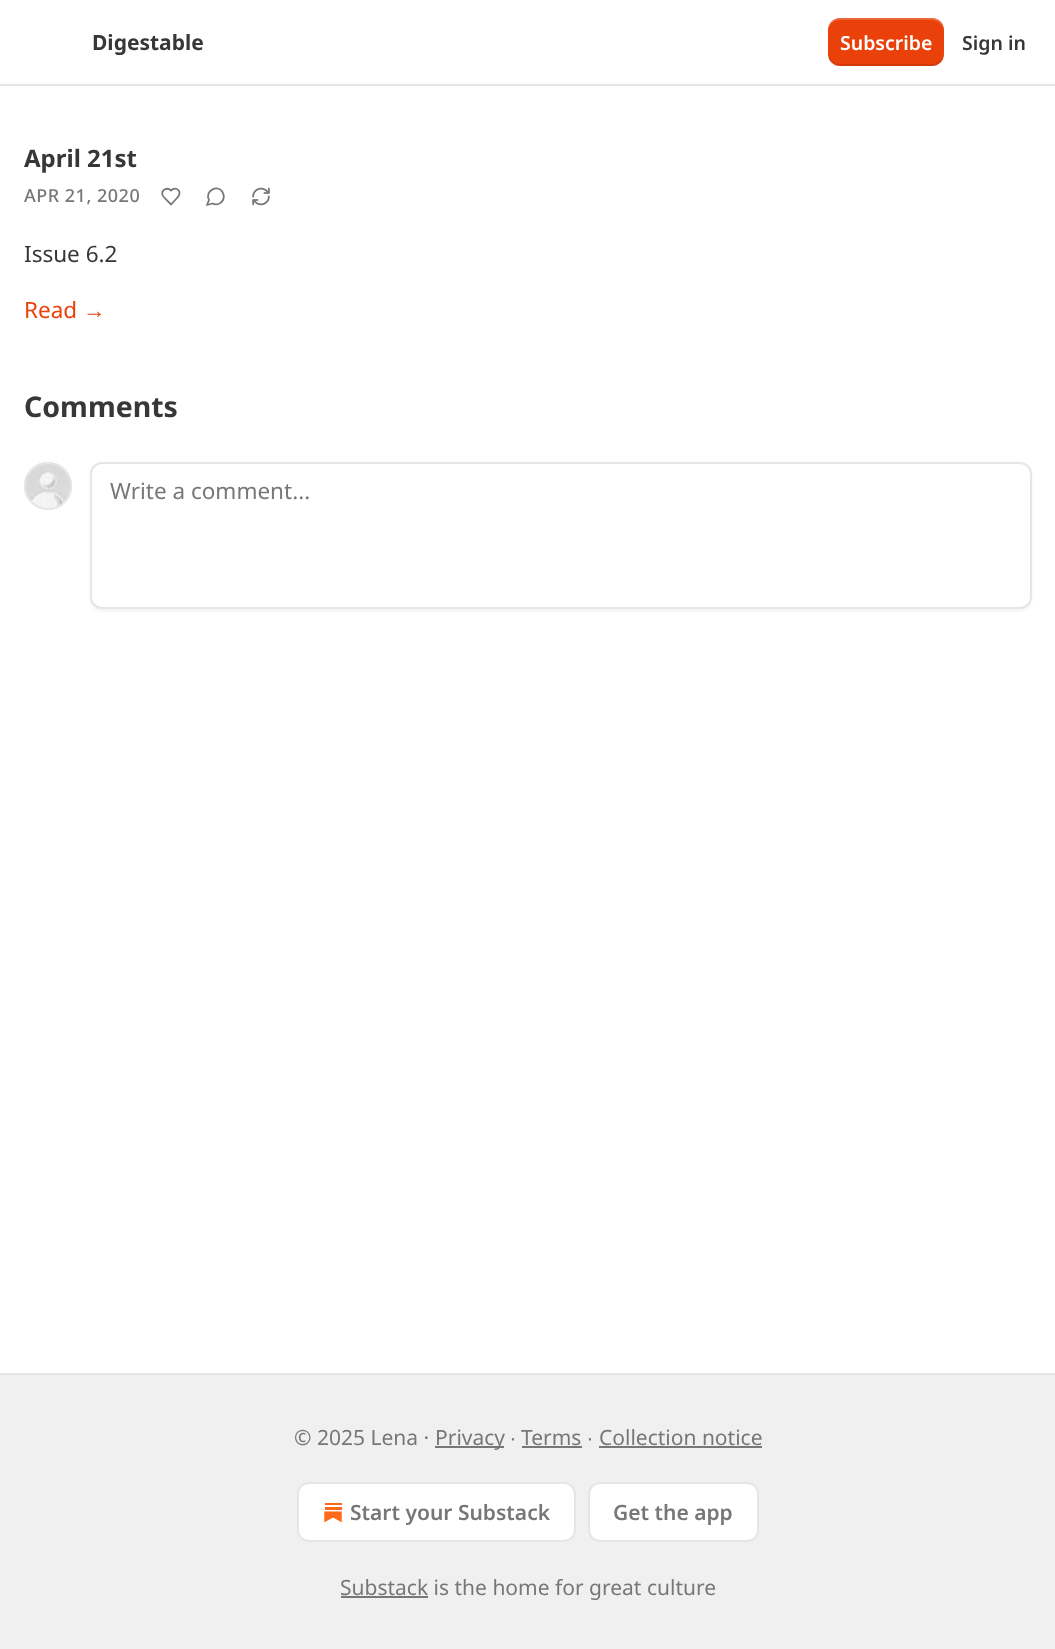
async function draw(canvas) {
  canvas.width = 1055;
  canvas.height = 1649;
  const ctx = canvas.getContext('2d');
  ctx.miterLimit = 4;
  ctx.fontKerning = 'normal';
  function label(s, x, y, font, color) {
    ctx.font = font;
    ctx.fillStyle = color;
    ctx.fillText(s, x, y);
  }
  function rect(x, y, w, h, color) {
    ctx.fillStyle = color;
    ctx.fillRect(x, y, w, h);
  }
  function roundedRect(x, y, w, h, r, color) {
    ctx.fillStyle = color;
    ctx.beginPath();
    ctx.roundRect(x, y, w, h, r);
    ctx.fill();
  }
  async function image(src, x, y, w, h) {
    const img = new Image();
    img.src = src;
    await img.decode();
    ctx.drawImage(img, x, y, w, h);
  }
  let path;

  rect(0, 0, 1055, 1649, '#fff');
  rect(0, 84, 1055, 2, '#e6e6e6');
  label('Digestable', 92, 50, 'bold 21px Noto Sans', '#363737');
  roundedRect(828, 18, 116, 48, 12, '#ea410b');
  ctx.fillStyle = '#0000001a';
  path = new Path2D('M828 52C828 69 843 66 855 66H917C929 66 944 69 944 52C944 59 938 64 932 64H840C833 64 828 59 828 52Z');
  ctx.fill(path);
  ctx.fillStyle = '#ffffff33';
  path = new Path2D('M840 20H932C938 20 944 25 944 32C944 15 929 18 917 18H855C843 18 828 15 828 32C828 25 833 20 840 20Z');
  ctx.fill(path);
  label('Subscribe', 840, 50, '600 19.5px Noto Sans', '#fff');
  label('Sign in', 962, 50, '600 19.5px Noto Sans', '#363737');
  label('April 21st', 24, 167, 'bold 24px Noto Sans', '#363737');
  ctx.letterSpacing = '0.5px';
  label('APR 21, 2020', 24, 202, '500 18px Noto Sans', '#777');
  path = new Path2D('M177 198C183.5 192 176 185.5 171 190.5C167.5 187 161 189.5 162.5 195C163.5 197.5 169 202 171 204.5Z');
  ctx.strokeStyle = '#777';
  ctx.lineWidth = 1.8;
  ctx.lineCap = 'round';
  ctx.lineJoin = 'round';
  ctx.stroke(path);
  path = new Path2D('M212.5 203.5C216.5 205.5 221 204 223 200C224 198 224 195.5 223 193C219 183.5 204 190.5 209 200L207 205Z');
  ctx.stroke(path);
  await image('assets/img1.png', 252, 187, 18, 19);
  ctx.letterSpacing = '0px';
  label('Issue 6.2', 24, 262, '22.5px Noto Sans', '#363737');
  label('Read', 24, 318, '22.5px Noto Sans', '#ea410b');
  label('→', 83, 318, '22.5px Liberation Sans', '#ea410b');
  label('Comments', 24, 417, 'bold 28.5px Noto Sans', '#363737');
  ctx.beginPath();
  ctx.arc(48, 486, 23, 0, 2 * Math.PI);
  ctx.strokeStyle = '#e6e6e6';
  ctx.lineWidth = 2;
  ctx.stroke();
  await image('assets/img2.png', 24, 462, 48, 48);
  ctx.beginPath();
  ctx.arc(48, 486, 23, 0, 2 * Math.PI);
  ctx.stroke();
  ctx.fillStyle = '#0000000d';
  ctx.filter = 'blur(1.5px)';
  ctx.beginPath();
  ctx.roundRect(90, 464, 942, 147, 12);
  ctx.fill();
  ctx.filter = 'none';
  ctx.fillStyle = '#fff';
  ctx.beginPath();
  ctx.roundRect(91, 463, 940, 145, 11);
  ctx.fill();
  ctx.lineJoin = 'miter';
  ctx.stroke();
  label('Write a comment...', 110, 499, '22.5px Noto Sans', '#777');
  rect(0, 1375, 1055, 274, '#f0f0f0');
  rect(0, 1373, 1055, 2, '#e6e6e6');
  label('© 2025 Lena ·', 294, 1445, '21px Noto Sans', '#777');
  rect(435, 1446, 69, 2, '#777');
  label('Privacy', 435, 1445, '21px Noto Sans', '#777');
  label('∙', 510, 1445, '21px Liberation Sans', '#777');
  label('Terms', 521, 1445, '21px Noto Sans', '#777');
  rect(522, 1446, 60, 2, '#777');
  label('∙', 587, 1445, '21px Liberation Sans', '#777');
  label('Collection notice', 599, 1445, '21px Noto Sans', '#777');
  rect(599, 1446, 163, 2, '#777');
  ctx.fillStyle = '#fff';
  ctx.beginPath();
  ctx.roundRect(298, 1483, 277, 58, 11);
  ctx.fill();
  ctx.stroke();
  await image('assets/img3.png', 324, 1503, 18, 20);
  label('Start your Substack', 350, 1520, '600 21px Noto Sans', '#777');
  ctx.fillStyle = '#fff';
  ctx.beginPath();
  ctx.roundRect(589, 1483, 169, 58, 11);
  ctx.fill();
  ctx.stroke();
  label('Get the app', 613, 1520, '600 21px Noto Sans', '#777');
  rect(341, 1596, 87, 2, '#777');
  label('Substack is the home for great culture', 340, 1595, '21px Noto Sans', '#777');
}

draw(document.querySelector('canvas'));
